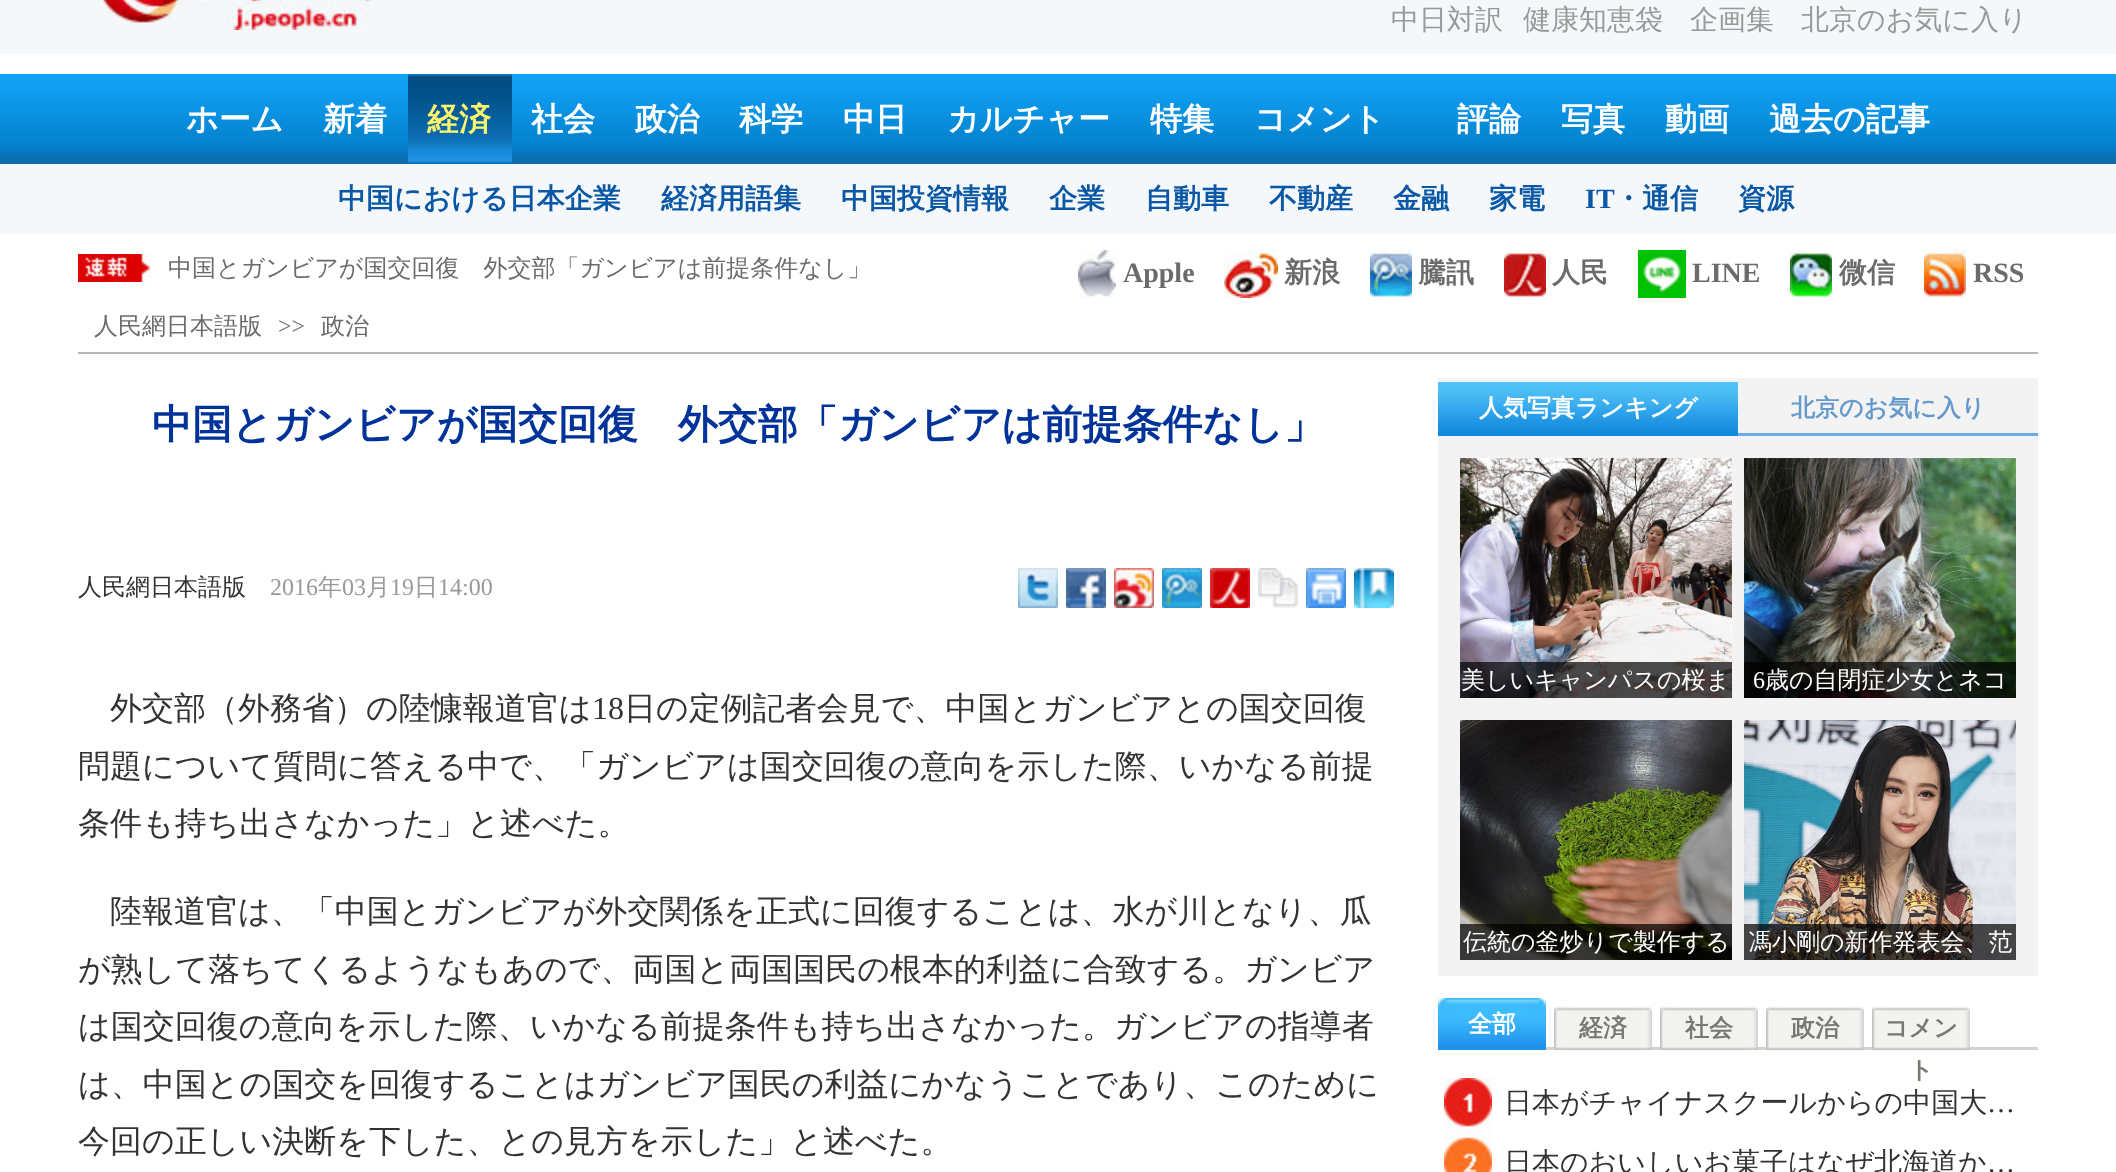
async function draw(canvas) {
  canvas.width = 2116;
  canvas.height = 1172;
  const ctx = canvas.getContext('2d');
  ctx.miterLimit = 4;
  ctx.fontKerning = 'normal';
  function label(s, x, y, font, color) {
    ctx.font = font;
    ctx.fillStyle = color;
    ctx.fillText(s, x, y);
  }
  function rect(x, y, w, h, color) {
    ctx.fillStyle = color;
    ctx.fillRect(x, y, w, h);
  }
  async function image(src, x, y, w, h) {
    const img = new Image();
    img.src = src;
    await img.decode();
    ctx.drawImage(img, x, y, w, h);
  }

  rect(0, 0, 2116, 1172, '#fff');
  rect(0, 0, 2116, 54, '#f5f8fa');
  await image('assets/img1.png', 98, 0, 276, 30);
  label('中日対訳', 1391, 29, '500 28px WenQuanYi Zen Hei', '#999');
  label('健康知恵袋', 1523, 29, '500 28px WenQuanYi Zen Hei', '#999');
  label('企画集', 1690, 29, '500 28px WenQuanYi Zen Hei', '#999');
  label('北京のお気に入り', 1801, 29, '500 28px WenQuanYi Zen Hei', '#999');
  await image('assets/img2.png', 0, 74, 2116, 90);
  label('ホーム', 186, 130, 'bold 32px WenQuanYi Zen Hei', '#fff');
  label('新着', 323, 130, 'bold 32px WenQuanYi Zen Hei', '#fff');
  await image('assets/img3.png', 408, 74, 104, 90);
  label('経済', 427, 130, 'bold 32px WenQuanYi Zen Hei', '#fff66d');
  label('社会', 531, 130, 'bold 32px WenQuanYi Zen Hei', '#fff');
  label('政治', 635, 130, 'bold 32px WenQuanYi Zen Hei', '#fff');
  label('科学', 739, 130, 'bold 32px WenQuanYi Zen Hei', '#fff');
  label('中日', 843, 130, 'bold 32px WenQuanYi Zen Hei', '#fff');
  label('カルチャー', 947, 130, 'bold 32px WenQuanYi Zen Hei', '#fff');
  label('特集', 1150, 130, 'bold 32px WenQuanYi Zen Hei', '#fff');
  label('コメント', 1254, 130, 'bold 32px WenQuanYi Zen Hei', '#fff');
  label('評論', 1457, 130, 'bold 32px WenQuanYi Zen Hei', '#fff');
  label('写真', 1561, 130, 'bold 32px WenQuanYi Zen Hei', '#fff');
  label('動画', 1665, 130, 'bold 32px WenQuanYi Zen Hei', '#fff');
  label('過去の記事', 1769, 130, 'bold 32px WenQuanYi Zen Hei', '#fff');
  rect(0, 164, 2116, 70, '#f5f8fa');
  label('中国における日本企業', 338, 208, 'bold 28px WenQuanYi Zen Hei', '#0a58a5');
  label('経済用語集', 661, 208, 'bold 28px WenQuanYi Zen Hei', '#0a58a5');
  label('中国投資情報', 841, 208, 'bold 28px WenQuanYi Zen Hei', '#0a58a5');
  label('企業', 1049, 208, 'bold 28px WenQuanYi Zen Hei', '#0a58a5');
  label('自動車', 1145, 208, 'bold 28px WenQuanYi Zen Hei', '#0a58a5');
  label('不動産', 1269, 208, 'bold 28px WenQuanYi Zen Hei', '#0a58a5');
  label('金融', 1393, 208, 'bold 28px WenQuanYi Zen Hei', '#0a58a5');
  label('家電', 1489, 208, 'bold 28px WenQuanYi Zen Hei', '#0a58a5');
  label('IT', 1585, 208, 'bold 28px Liberation Serif', '#0a58a5');
  label('・通信', 1614, 208, 'bold 28px WenQuanYi Zen Hei', '#0a58a5');
  label('資源', 1738, 208, 'bold 28px WenQuanYi Zen Hei', '#0a58a5');
  await image('assets/img4.png', 78, 254, 72, 28);
  label('中国とガンビアが国交回復　外交部「ガンビアは前提条件なし」', 168, 276, '500 24px WenQuanYi Zen Hei', '#6b6b6b');
  await image('assets/img5.png', 1078, 250, 38, 48);
  label('Apple', 1123, 282, 'bold 28px Liberation Serif', '#6b6b6b');
  await image('assets/img6.png', 1224, 250, 54, 48);
  label('新浪', 1284, 282, 'bold 28px WenQuanYi Zen Hei', '#6b6b6b');
  await image('assets/img7.png', 1370, 250, 42, 48);
  label('騰訊', 1418, 282, 'bold 28px WenQuanYi Zen Hei', '#6b6b6b');
  await image('assets/img8.png', 1504, 250, 42, 48);
  label('人民', 1552, 282, 'bold 28px WenQuanYi Zen Hei', '#6b6b6b');
  await image('assets/img9.png', 1638, 250, 48, 48);
  label('LINE', 1692, 282, 'bold 28px Liberation Serif', '#6b6b6b');
  await image('assets/img10.png', 1790, 250, 42, 48);
  label('微信', 1839, 282, 'bold 28px WenQuanYi Zen Hei', '#6b6b6b');
  await image('assets/img11.png', 1924, 250, 42, 48);
  label('RSS', 1973, 282, 'bold 28px Liberation Serif', '#6b6b6b');
  rect(78, 352, 1960, 2, '#b7b7b7');
  label('人民網日本語版', 94, 334, '500 24px WenQuanYi Zen Hei', '#6b6b6b');
  label('>>', 278, 334, '24px Liberation Serif', '#6b6b6b');
  label('政治', 321, 334, '500 24px WenQuanYi Zen Hei', '#6b6b6b');
  label('中国とガンビアが国交回復　外交部「ガンビアは前提条件なし」', 152, 438, 'bold 40px WenQuanYi Zen Hei', '#039');
  label('人民網日本語版', 78, 595, '500 24px WenQuanYi Zen Hei', '#333');
  label('2016', 270, 595, '24px Liberation Serif', '#999');
  label('年', 318, 595, '500 24px WenQuanYi Zen Hei', '#999');
  label('03', 342, 595, '24px Liberation Serif', '#999');
  label('月', 366, 595, '500 24px WenQuanYi Zen Hei', '#999');
  label('19', 390, 595, '24px Liberation Serif', '#999');
  label('日', 414, 595, '500 24px WenQuanYi Zen Hei', '#999');
  label('14:00', 438, 595, '24px Liberation Serif', '#999');
  await image('assets/img12.png', 1018, 568, 40, 40);
  await image('assets/img13.png', 1066, 568, 40, 40);
  await image('assets/img14.png', 1114, 568, 40, 40);
  await image('assets/img15.png', 1162, 568, 40, 40);
  await image('assets/img16.png', 1210, 568, 40, 40);
  await image('assets/img17.png', 1258, 568, 40, 40);
  await image('assets/img18.png', 1306, 568, 40, 40);
  await image('assets/img19.png', 1354, 568, 40, 40);
  label('外交部（外務省）の陸慷報道官は', 110, 719, '500 32px WenQuanYi Zen Hei', '#333');
  label('18', 592, 719, '32px Liberation Serif', '#333');
  label('日の定例記者会見で、中国とガンビアとの国交回復', 624, 719, '500 32px WenQuanYi Zen Hei', '#333');
  label('問題について質問に答える中で、「ガンビアは国交回復の意向を示した際、いかなる前提', 78, 777, '500 32px WenQuanYi Zen Hei', '#333');
  label('条件も持ち出さなかった」と述べた。', 78, 834, '500 32px WenQuanYi Zen Hei', '#333');
  label('陸報道官は、「中国とガンビアが外交関係を正式に回復することは、水が川となり、瓜', 110, 922, '500 32px WenQuanYi Zen Hei', '#333');
  label('が熟して落ちてくるようなもあので、両国と両国国民の根本的利益に合致する。ガンビア', 78, 980, '500 32px WenQuanYi Zen Hei', '#333');
  label('は国交回復の意向を示した際、いかなる前提条件も持ち出さなかった。ガンビアの指導者', 78, 1037, '500 32px WenQuanYi Zen Hei', '#333');
  label('は、中国との国交を回復することはガンビア国民の利益にかなうことであり、このために', 78, 1095, '500 32px WenQuanYi Zen Hei', '#333');
  label('今回の正しい決断を下した、との見方を示した」と述べた。', 78, 1152, '500 32px WenQuanYi Zen Hei', '#333');
  rect(1438, 378, 600, 598, '#f3f3f3');
  rect(1738, 433, 300, 3, '#6caae8');
  await image('assets/img20.png', 1438, 382, 300, 54);
  label('人気写真ランキング', 1479, 416, 'bold 24px WenQuanYi Zen Hei', '#fff');
  label('北京のお気に入り', 1791, 416, 'bold 24px WenQuanYi Zen Hei', '#69c');
  await image('assets/img21.png', 1460, 458, 272, 240);
  rect(1460, 662, 272, 36, '#000000b3');
  label('美しいキャンパスの桜ま', 1461, 688, '500 24px WenQuanYi Zen Hei', '#fff');
  await image('assets/img22.png', 1744, 458, 272, 240);
  rect(1744, 662, 272, 36, '#000000b3');
  label('6', 1753, 688, '24px Liberation Serif', '#fff');
  label('歳の自閉症少女とネコ', 1765, 688, '500 24px WenQuanYi Zen Hei', '#fff');
  await image('assets/img23.png', 1460, 720, 272, 240);
  rect(1460, 924, 272, 36, '#000000b3');
  label('伝統の釜炒りで製作する', 1463, 950, '500 24px WenQuanYi Zen Hei', '#fff');
  await image('assets/img24.png', 1744, 720, 272, 240);
  rect(1744, 924, 272, 36, '#000000b3');
  label('馮小剛の新作発表会、范', 1748, 950, '500 24px WenQuanYi Zen Hei', '#fff');
  rect(1546, 1047, 492, 3, '#d2d2d2');
  await image('assets/img25.png', 1438, 998, 108, 52);
  label('全部', 1468, 1032, 'bold 24px WenQuanYi Zen Hei', '#fff');
  await image('assets/img26.png', 1554, 1006, 98, 44);
  label('経済', 1579, 1036, 'bold 24px WenQuanYi Zen Hei', '#787871');
  await image('assets/img26.png', 1660, 1006, 98, 44);
  label('社会', 1685, 1036, 'bold 24px WenQuanYi Zen Hei', '#787871');
  await image('assets/img26.png', 1766, 1006, 98, 44);
  label('政治', 1791, 1036, 'bold 24px WenQuanYi Zen Hei', '#787871');
  await image('assets/img26.png', 1872, 1006, 98, 44);
  label('コメン', 1884, 1036, 'bold 24px WenQuanYi Zen Hei', '#787871');
  label('ト', 1909, 1078, 'bold 24px WenQuanYi Zen Hei', '#787871');
  await image('assets/img27.png', 1444, 1078, 48, 94);
  label('日本がチャイナスクールからの中国大', 1504, 1112, '500 28px WenQuanYi Zen Hei', '#333');
  label('…', 1987, 1112, '28px Liberation Serif', '#333');
  label('日本のおいしいお菓子はなぜ北海道か', 1504, 1172, '500 28px WenQuanYi Zen Hei', '#333');
  label('…', 1987, 1172, '28px Liberation Serif', '#333');
}

draw(document.querySelector('canvas'));
